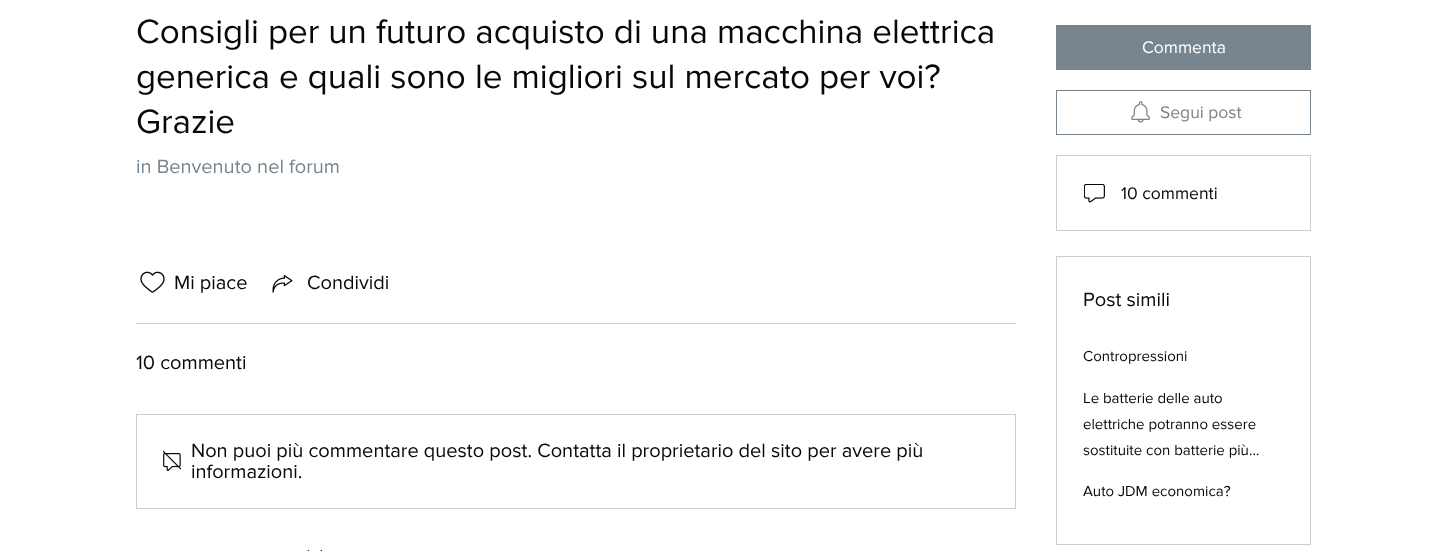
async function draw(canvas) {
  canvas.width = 1447;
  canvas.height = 551;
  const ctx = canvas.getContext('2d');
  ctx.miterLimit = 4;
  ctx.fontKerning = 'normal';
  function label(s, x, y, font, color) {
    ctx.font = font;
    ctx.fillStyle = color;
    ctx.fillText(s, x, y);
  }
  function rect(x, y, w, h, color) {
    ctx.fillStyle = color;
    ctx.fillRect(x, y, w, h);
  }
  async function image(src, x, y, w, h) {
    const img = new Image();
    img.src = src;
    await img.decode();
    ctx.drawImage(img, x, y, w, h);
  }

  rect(0, 0, 1447, 551, '#fff');
  label('Consigli per un futuro acquisto di una macchina elettrica', 136, 43, '35px "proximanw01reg"', '#0c0707');
  label('generica e quali sono le migliori sul mercato per voi?', 136, 88, '35px "proximanw01reg"', '#0c0707');
  label('Grazie', 136, 133, '35px "proximanw01reg"', '#0c0707');
  label('in Benvenuto nel forum', 136, 173, '20px "proximanw01reg"', '#79858e');
  await image('assets/img1.png', 140, 271, 25, 22);
  label('Mi piace', 174, 289, '20px "proximanw01reg"', '#0c0707');
  await image('assets/img2.png', 272, 275, 21, 18);
  label('Condividi', 307, 289, '20px "proximanw01reg"', '#0c0707');
  rect(136, 323, 880, 1, '#cecdcd');
  label('10 commenti', 136, 369, '20px "proximanw01reg"', '#0c0707');
  ctx.strokeStyle = '#cecdcd';
  ctx.strokeRect(136.5, 414.5, 879, 94);
  await image('assets/img3.png', 163, 450, 18, 21);
  label('Non puoi più commentare questo post. Contatta il proprietario del sito per avere più', 191, 457, '20px "proximanw01reg"', '#0c0707');
  label('informazioni.', 191, 478, '20px "proximanw01reg"', '#0c0707');
  await image('assets/img4.png', 307, 549, 16, 2);
  rect(1056, 25, 255, 45, '#79858e');
  label('Commenta', 1142, 53, '17.5px "proximanw01reg"', '#fff');
  ctx.strokeStyle = '#79858e';
  ctx.strokeRect(1056.5, 90.5, 254, 44);
  await image('assets/img5.png', 1131, 101, 19, 22);
  label('Segui post', 1160, 118, '17.5px "proximanw01reg"', '#79858e');
  ctx.strokeStyle = '#cecdcd';
  ctx.strokeRect(1056.5, 155.5, 254, 75);
  await image('assets/img6.png', 1084, 184, 21, 19);
  label('10 commenti', 1121, 199, '17.5px "proximanw01reg"', '#0c0707');
  ctx.strokeRect(1056.5, 256.5, 254, 288);
  label('Post simili', 1083, 306, '20px "proximanw01reg"', '#0c0707');
  label('Contropressioni', 1083, 361, '15px "proximanw01reg"', '#0c0707');
  label('Le batterie delle auto', 1083, 403, '15px "proximanw01reg"', '#0c0707');
  label('elettriche potranno essere', 1083, 429, '15px "proximanw01reg"', '#0c0707');
  label('sostituite con batterie più…', 1083, 455, '15px "proximanw01reg"', '#0c0707');
  label('Auto JDM economica?', 1083, 496, '15px "proximanw01reg"', '#0c0707');
}

draw(document.querySelector('canvas'));
